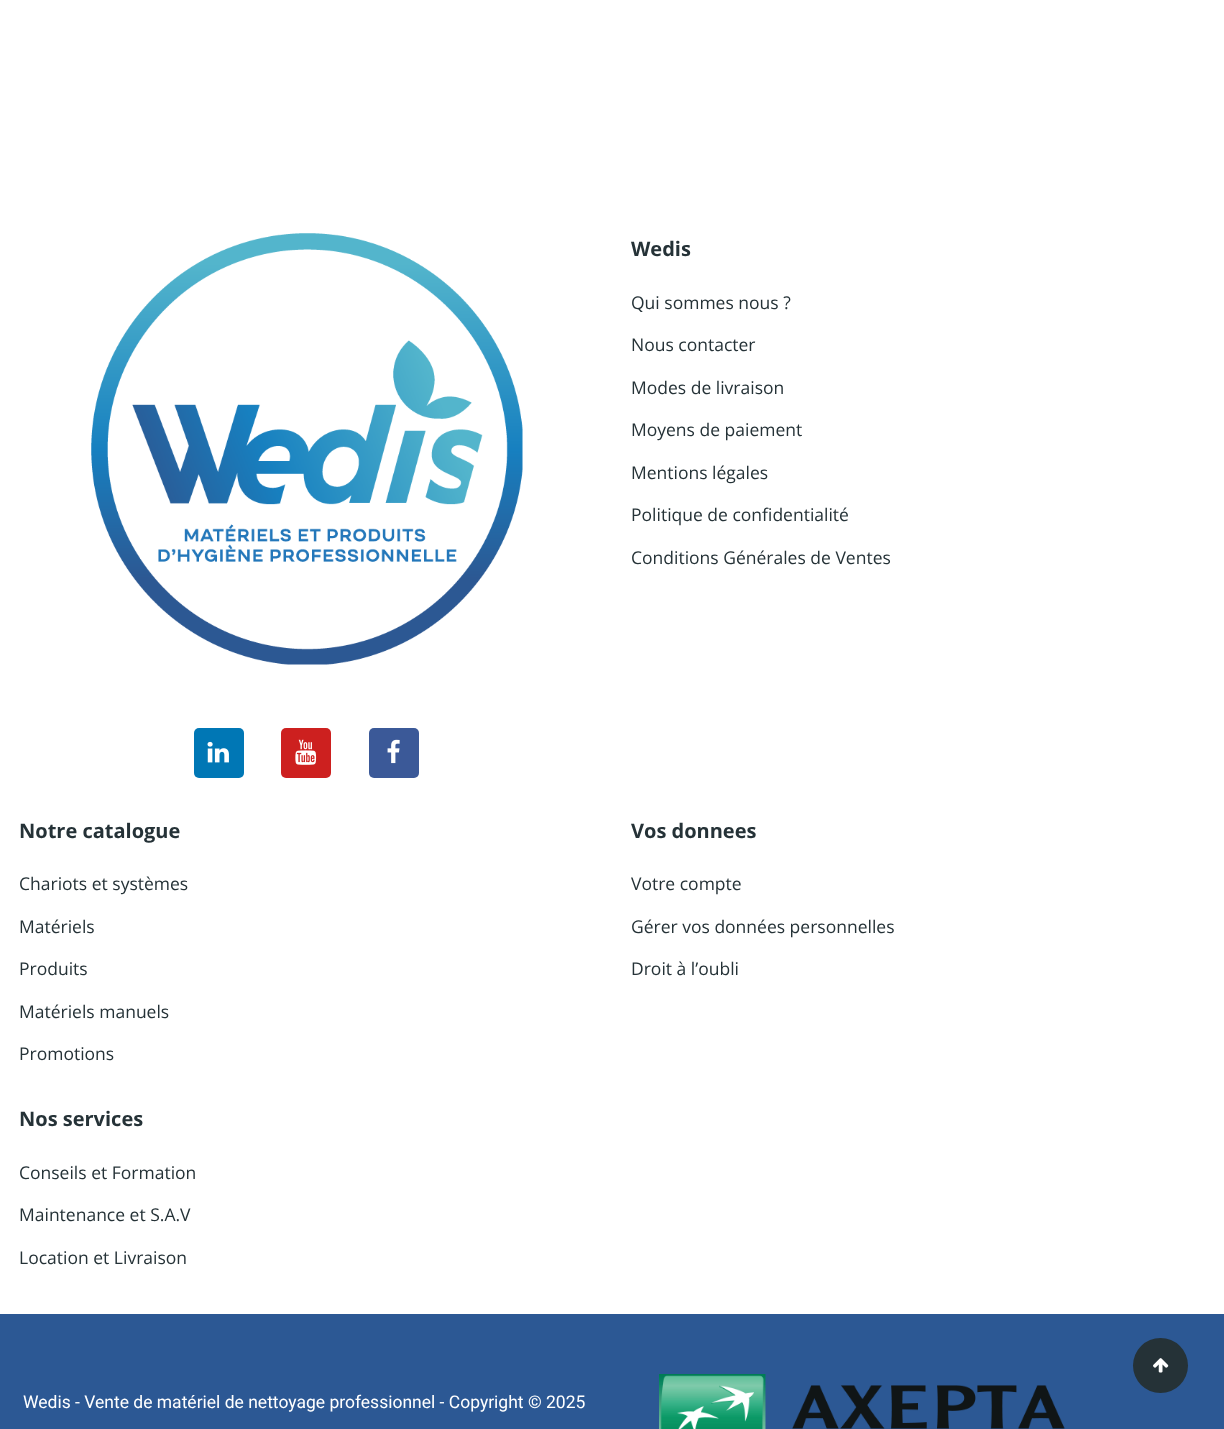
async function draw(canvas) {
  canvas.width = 1224;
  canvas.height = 1429;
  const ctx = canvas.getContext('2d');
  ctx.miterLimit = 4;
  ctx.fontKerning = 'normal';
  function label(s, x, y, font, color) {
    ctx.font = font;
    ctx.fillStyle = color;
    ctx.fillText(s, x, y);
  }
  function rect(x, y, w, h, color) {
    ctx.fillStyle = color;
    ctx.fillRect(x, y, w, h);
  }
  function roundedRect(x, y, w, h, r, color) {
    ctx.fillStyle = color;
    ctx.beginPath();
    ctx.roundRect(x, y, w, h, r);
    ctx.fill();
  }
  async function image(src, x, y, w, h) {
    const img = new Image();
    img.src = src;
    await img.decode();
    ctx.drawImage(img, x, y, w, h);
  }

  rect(0, 0, 1224, 1429, '#fff');
  await image('assets/img1.png', 91, 233, 432, 432);
  roundedRect(194, 728, 50, 50, 5, '#0077b5');
  await image('assets/img2.png', 207, 741, 22, 22);
  roundedRect(281, 728, 50, 50, 5, '#cd201f');
  await image('assets/img3.png', 295, 739, 22, 26);
  roundedRect(369, 728, 50, 50, 5, '#3b5998');
  await image('assets/img4.png', 387, 739, 13, 25);
  label('Wedis', 631, 256, 'bold 20px Open Sans', '#253237');
  label('Qui sommes nous ?', 631, 309, '17.5px Open Sans', '#253237');
  label('Nous contacter', 631, 351, '17.5px Open Sans', '#253237');
  label('Modes de livraison', 631, 394, '17.5px Open Sans', '#253237');
  label('Moyens de paiement', 631, 436, '17.5px Open Sans', '#253237');
  label('Mentions légales', 631, 479, '17.5px Open Sans', '#253237');
  label('Politique de confidentialité', 631, 521, '17.5px Open Sans', '#253237');
  label('Conditions Générales de Ventes', 631, 564, '17.5px Open Sans', '#253237');
  label('Notre catalogue', 19, 838, 'bold 20px Open Sans', '#253237');
  label('Chariots et systèmes', 19, 890, '17.5px Open Sans', '#253237');
  label('Matériels', 19, 933, '17.5px Open Sans', '#253237');
  label('Produits', 19, 975, '17.5px Open Sans', '#253237');
  label('Matériels manuels', 19, 1018, '17.5px Open Sans', '#253237');
  label('Promotions', 19, 1060, '17.5px Open Sans', '#253237');
  label('Vos donnees', 631, 838, 'bold 20px Open Sans', '#253237');
  label('Votre compte', 631, 890, '17.5px Open Sans', '#253237');
  label('Gérer vos données personnelles', 631, 933, '17.5px Open Sans', '#253237');
  label('Droit à l’oubli', 631, 975, '17.5px Open Sans', '#253237');
  label('Nos services', 19, 1126, 'bold 20px Open Sans', '#253237');
  label('Conseils et Formation', 19, 1179, '17.5px Open Sans', '#253237');
  label('Maintenance et S.A.V', 19, 1221, '17.5px Open Sans', '#253237');
  label('Location et Livraison', 19, 1264, '17.5px Open Sans', '#253237');
  rect(0, 1314, 1224, 115, '#2c5894');
  label('Wedis - Vente de matériel de nettoyage professionnel - Copyright © 2025', 23, 1408, '17.5px Roboto', '#fff');
  await image('assets/img5.png', 659, 1374, 406, 55);
  ctx.fillStyle = '#253237';
  ctx.beginPath();
  ctx.arc(1160.5, 1365.5, 27.5, 0, 2 * Math.PI);
  ctx.fill();
  await image('assets/img6.png', 1153, 1358, 16, 15);
}

draw(document.querySelector('canvas'));
